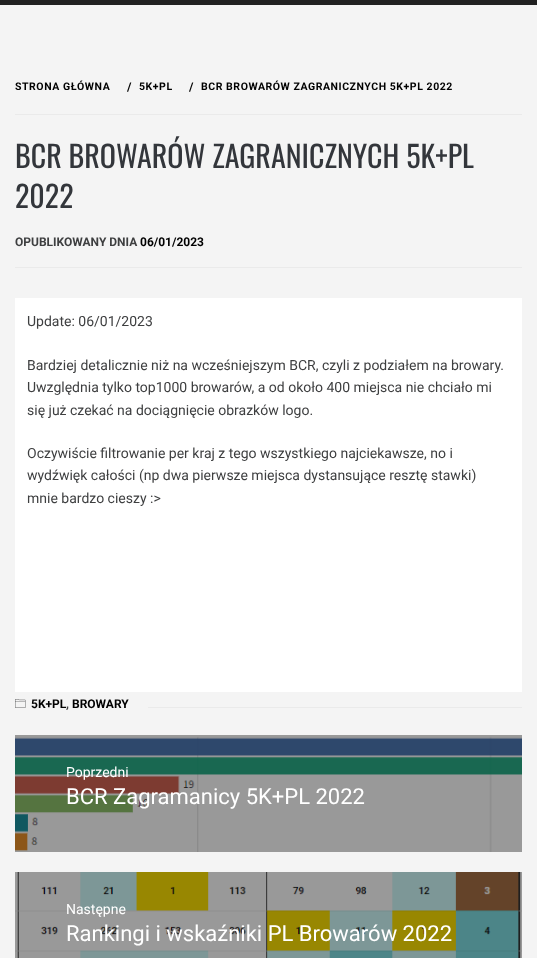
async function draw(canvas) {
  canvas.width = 537;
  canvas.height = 958;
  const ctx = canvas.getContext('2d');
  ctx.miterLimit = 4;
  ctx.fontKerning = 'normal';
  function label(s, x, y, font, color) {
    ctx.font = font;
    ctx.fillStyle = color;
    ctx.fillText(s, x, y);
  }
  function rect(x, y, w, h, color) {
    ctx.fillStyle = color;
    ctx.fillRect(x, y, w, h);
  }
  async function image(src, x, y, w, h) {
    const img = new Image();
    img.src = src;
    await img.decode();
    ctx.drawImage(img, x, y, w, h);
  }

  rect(0, 0, 537, 958, '#f4f4f4');
  rect(0, 0, 537, 5, '#212121');
  rect(15, 267, 507, 1, '#eaeaea');
  rect(15, 114, 507, 1, '#eaeaea');
  ctx.letterSpacing = '0.55px';
  label('STRONA GŁÓWNA', 15, 90, 'bold 10.5px Roboto', '#000');
  label('/', 127, 91, 'bold 12px Roboto', '#000');
  label('5K+PL', 139, 90, 'bold 10.5px Roboto', '#000');
  label('/', 189, 91, 'bold 12px Roboto', '#000');
  label('BCR BROWARÓW ZAGRANICZNYCH 5K+PL 2022', 201, 90, 'bold 10.5px Roboto', '#000');
  ctx.letterSpacing = '0px';
  label('BCR BROWARÓW ZAGRANICZNYCH 5K+PL', 15, 168, '30px Oswald', '#33363b');
  label('2022', 15, 208, '30px Oswald', '#33363b');
  label('OPUBLIKOWANY DNIA', 15, 246, 'bold 12px Roboto', '#3e3f40');
  label('06/01/2023', 140, 246, 'bold 12px Roboto', '#000');
  rect(15, 298, 507, 394, '#fff');
  label('Update: 06/01/2023', 27, 326, '14px Roboto', '#3e3f40');
  label('Bardziej detalicznie niż na wcześniejszym BCR, czyli z podziałem na browary.', 27, 370, '14px Roboto', '#3e3f40');
  label('Uwzględnia tylko top1000 browarów, a od około 400 miejsca nie chciało mi', 27, 392, '14px Roboto', '#3e3f40');
  label('się już czekać na dociągnięcie obrazków logo.', 27, 415, '14px Roboto', '#3e3f40');
  label('Oczywiście filtrowanie per kraj z tego wszystkiego najciekawsze, no i', 27, 458, '14px Roboto', '#3e3f40');
  label('wydźwięk całości (np dwa pierwsze miejsca dystansujące resztę stawki)', 27, 480, '14px Roboto', '#3e3f40');
  label('mnie bardzo cieszy :>', 27, 503, '14px Roboto', '#3e3f40');
  await image('assets/img1.png', 15, 699, 11, 9);
  label('5K+PL', 31, 708, 'bold 12px Roboto', '#000');
  label(',', 66, 708, 'bold 12px Roboto', '#3e3f40');
  label('BROWARY', 72, 708, 'bold 12px Roboto', '#000');
  rect(148, 707, 374, 1, '#eaeaea');
  await image('assets/img2.png', 15, 735, 507, 117);
  label('Poprzedni', 66, 777, '14px Roboto', '#fff');
  label('BCR Zagramanicy 5K+PL 2022', 66, 804, '22px Roboto', '#fff');
  await image('assets/img3.png', 15, 872, 507, 86);
  label('Następne', 66, 914, '14px Roboto', '#fff');
  label('Rankingi i wskaźniki PL Browarów 2022', 66, 941, '22px Roboto', '#fff');
}

draw(document.querySelector('canvas'));
